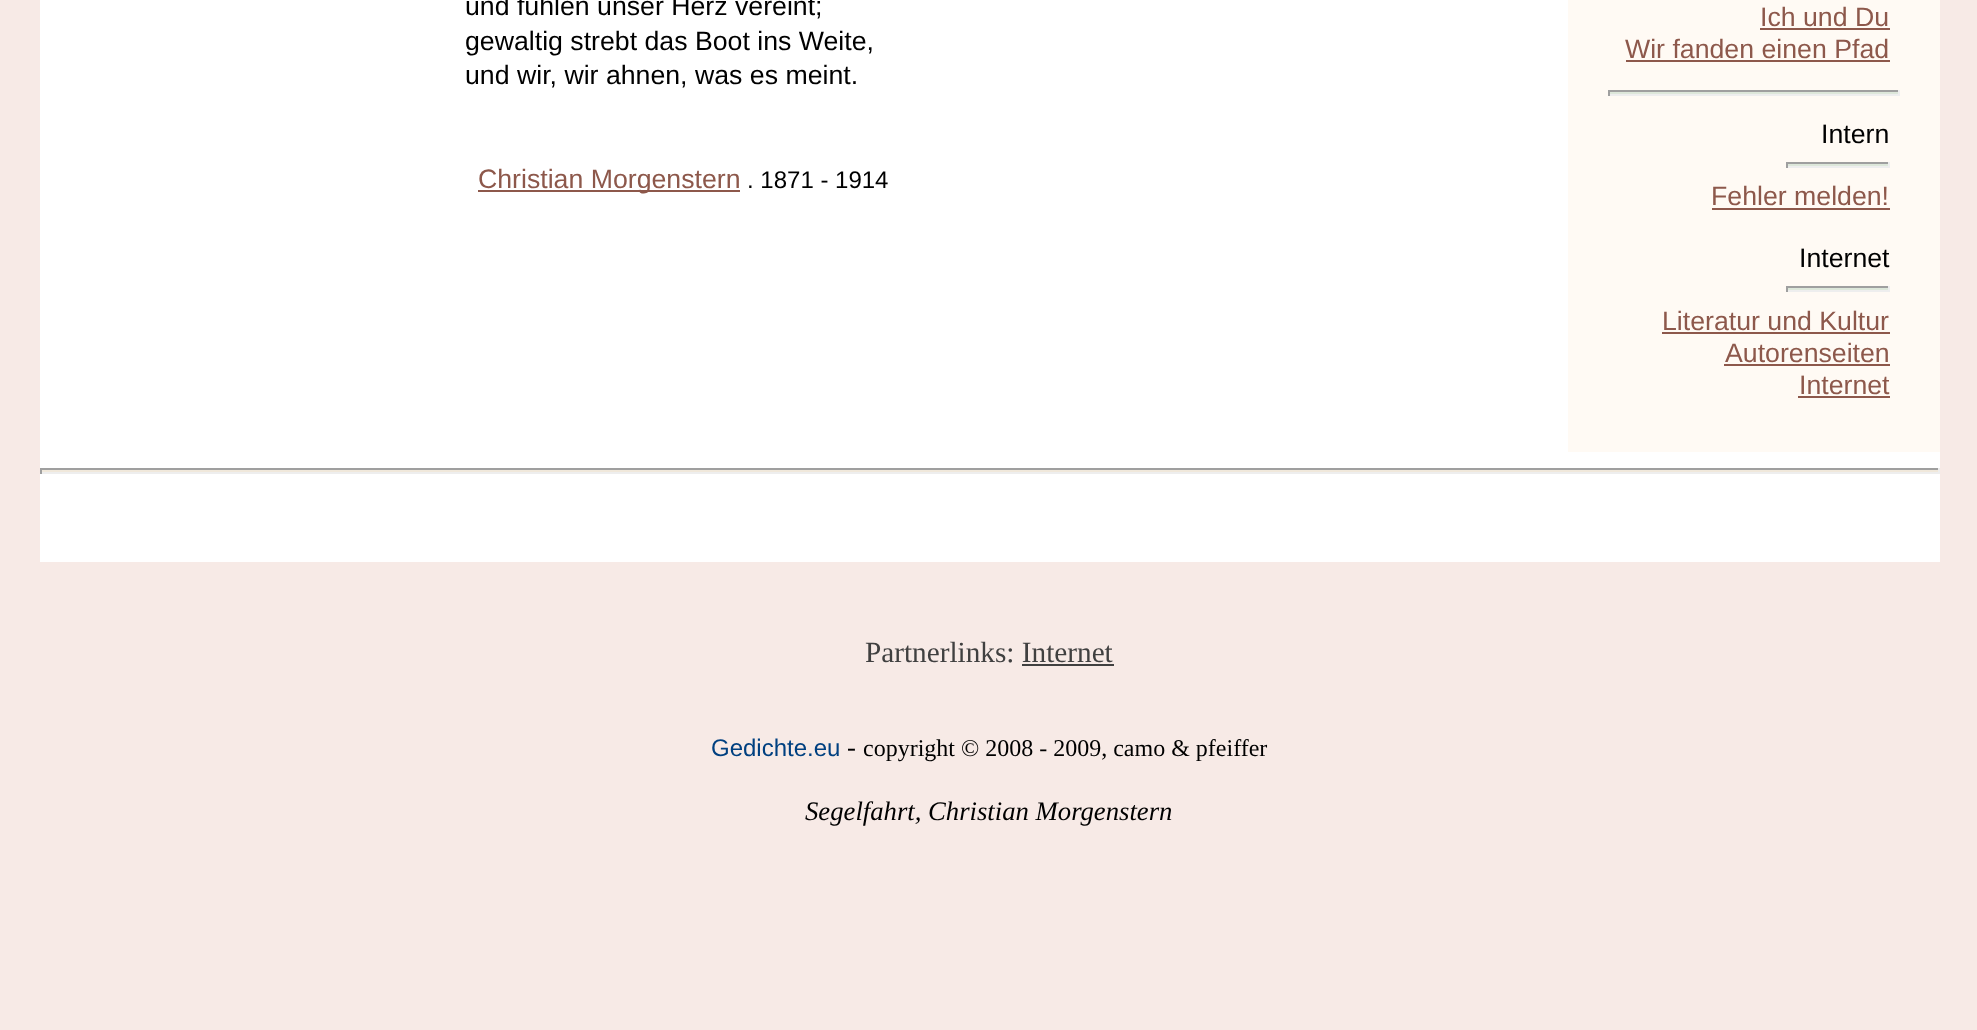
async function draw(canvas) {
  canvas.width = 1977;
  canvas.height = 1030;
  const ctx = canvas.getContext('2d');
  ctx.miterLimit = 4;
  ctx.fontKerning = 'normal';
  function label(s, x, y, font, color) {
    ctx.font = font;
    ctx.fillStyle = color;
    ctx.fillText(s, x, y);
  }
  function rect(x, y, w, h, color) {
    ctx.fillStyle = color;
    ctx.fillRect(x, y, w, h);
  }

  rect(0, 0, 1977, 1030, '#f7eae6');
  rect(40, 0, 1900, 562, '#fff');
  label('und fühlen unser Herz vereint;', 465, 15, '26.7px Liberation Sans', '#000');
  label('gewaltig strebt das Boot ins Weite,', 465, 50, '26.7px Liberation Sans', '#000');
  label('und wir, wir ahnen, was es meint.', 465, 84, '26.7px Liberation Sans', '#000');
  rect(478, 190, 262, 2, '#8d584b');
  label('Christian Morgenstern', 478, 188, '26.7px Liberation Sans', '#8d584b');
  label('. 1871 - 1914', 747, 188, '24px Liberation Sans', '#000');
  rect(1568, 0, 372, 452, '#fffaf4');
  label('Ich und Du', 1760, 26, '26.7px Liberation Sans', '#8d584b');
  rect(1760, 28, 130, 2, '#8d584b');
  label('Wir fanden einen Pfad', 1625, 58, '26.7px Liberation Sans', '#8d584b');
  rect(1626, 60, 264, 2, '#8d584b');
  rect(1608, 92, 292, 2, '#dde7da');
  rect(1608, 90, 292, 2, '#9f9f9f');
  rect(1898, 90, 2, 6, '#eee');
  rect(1608, 94, 292, 2, '#eee');
  rect(1608, 90, 2, 6, '#9f9f9f');
  label('Intern', 1821, 143, '26.7px Liberation Sans', '#000');
  rect(1786, 164, 104, 2, '#dde7da');
  rect(1786, 162, 104, 2, '#9f9f9f');
  rect(1888, 162, 2, 6, '#eee');
  rect(1786, 166, 104, 2, '#eee');
  rect(1786, 162, 2, 6, '#9f9f9f');
  label('Fehler melden!', 1711, 205, '26.7px Liberation Sans', '#8d584b');
  rect(1712, 208, 178, 2, '#8d584b');
  label('Internet', 1799, 267, '26.7px Liberation Sans', '#000');
  rect(1786, 288, 104, 2, '#dde7da');
  rect(1786, 286, 104, 2, '#9f9f9f');
  rect(1888, 286, 2, 6, '#eee');
  rect(1786, 290, 104, 2, '#eee');
  rect(1786, 286, 2, 6, '#9f9f9f');
  label('Literatur und Kultur', 1662, 330, '26.7px Liberation Sans', '#8d584b');
  rect(1662, 332, 228, 2, '#8d584b');
  label('Autorenseiten', 1725, 362, '26.7px Liberation Sans', '#8d584b');
  rect(1724, 364, 166, 2, '#8d584b');
  label('Internet', 1799, 394, '26.7px Liberation Sans', '#8d584b');
  rect(1798, 396, 92, 2, '#8d584b');
  rect(40, 470, 1900, 2, '#f0e8db');
  rect(40, 468, 1900, 2, '#9f9f9f');
  rect(1938, 468, 2, 6, '#eee');
  rect(40, 472, 1900, 2, '#eee');
  rect(40, 468, 2, 6, '#9f9f9f');
  label('Partnerlinks: Internet', 865, 662, '29.25px Liberation Serif', '#404040');
  rect(1022, 664, 92, 2, '#404040');
  label('Gedichte.eu', 711, 756, '24px Liberation Sans', '#004080');
  label('-', 847, 756, '26.7px Liberation Serif', '#000');
  label('copyright © 2008 - 2009, camo & pfeiffer', 863, 756, '24px Liberation Serif', '#000');
  label('Segelfahrt, Christian Morgenstern', 805, 820, 'italic 26.7px Liberation Serif', '#000');
}

draw(document.querySelector('canvas'));
